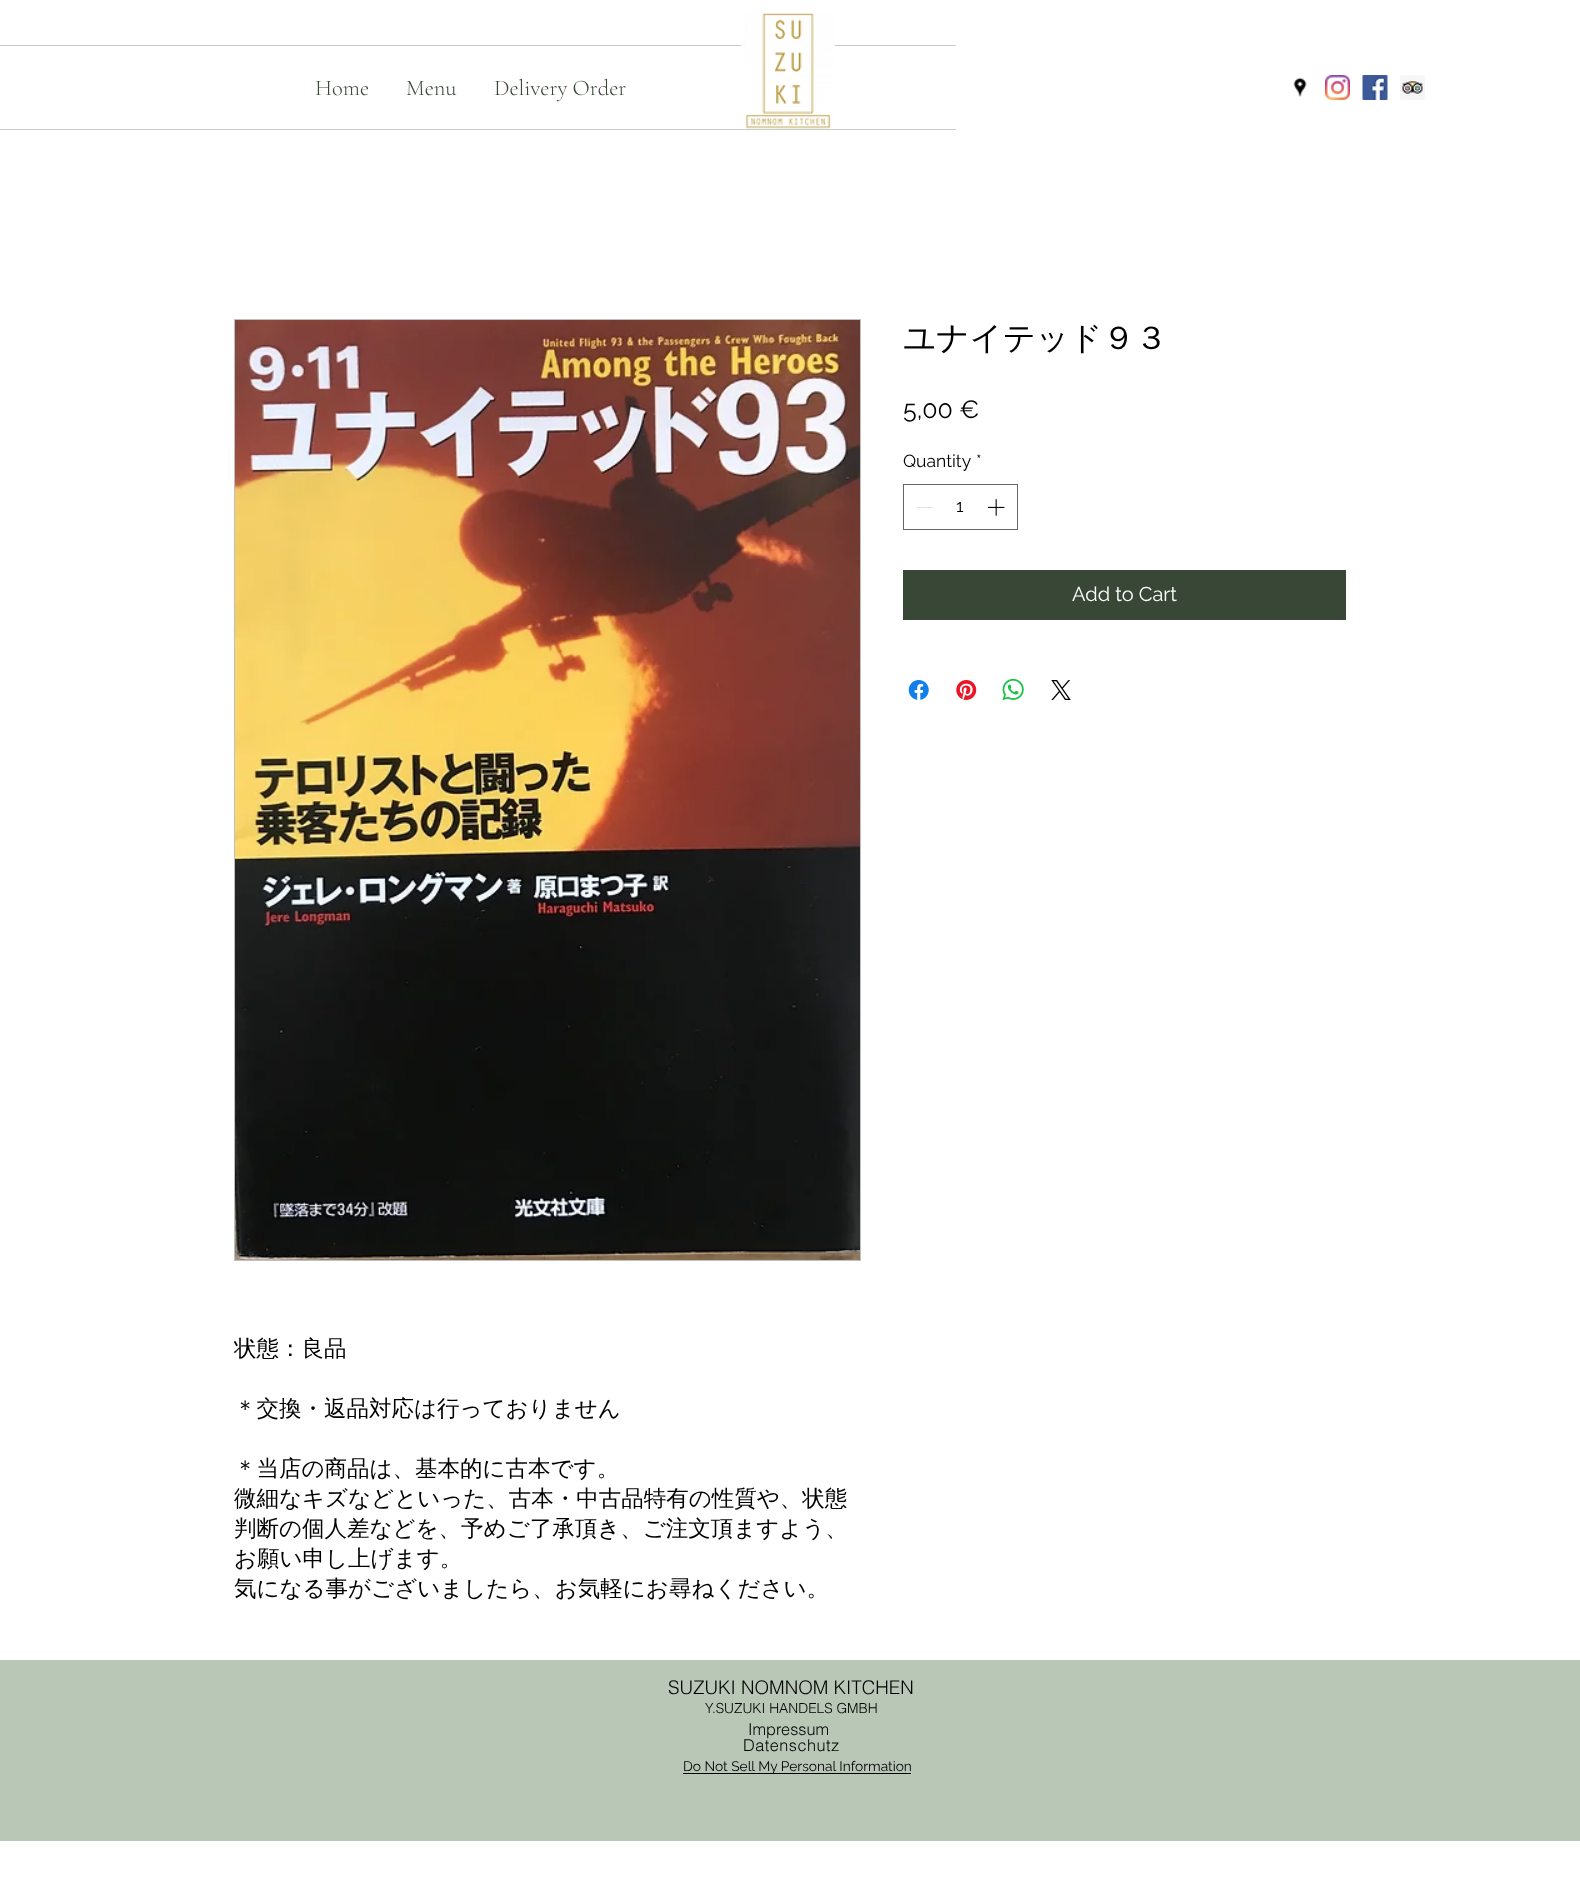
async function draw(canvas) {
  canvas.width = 1580;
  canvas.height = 1888;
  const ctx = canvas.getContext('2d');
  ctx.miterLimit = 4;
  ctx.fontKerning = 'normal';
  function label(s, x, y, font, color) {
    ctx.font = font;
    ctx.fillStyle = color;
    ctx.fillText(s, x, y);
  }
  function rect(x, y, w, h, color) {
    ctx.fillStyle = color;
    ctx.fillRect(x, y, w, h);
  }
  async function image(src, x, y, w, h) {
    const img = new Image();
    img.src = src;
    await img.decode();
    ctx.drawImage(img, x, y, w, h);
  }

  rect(0, 0, 1580, 1888, '#fff');
  rect(0, 45, 956, 1, '#cacaca');
  rect(0, 129, 956, 1, '#cacaca');
  label('Home', 315, 95, '300 22.5px Cormorant Garamond', '#394737');
  label('Menu', 406, 95, '300 22.5px Cormorant Garamond', '#394737');
  label('Delivery Order', 494, 95, '300 22.5px Cormorant Garamond', '#394737');
  await image('assets/img1.png', 741, 13, 94, 116);
  await image('assets/img2.png', 1293, 77, 14, 20);
  await image('assets/img3.png', 1325, 75, 25, 25);
  await image('assets/img4.png', 1362, 75, 26, 25);
  await image('assets/img5.png', 1400, 75, 25, 25);
  label('ユナイテッド９３', 903, 349, '500 32.5px WenQuanYi Zen Hei', '#000');
  label('5,00 €', 903, 418, '25px Raleway', '#000');
  label('Quantity', 903, 467, '17.5px Raleway', '#000');
  label('*', 976, 467, '17.5px Raleway', '#000');
  ctx.strokeStyle = '#666';
  ctx.strokeRect(903.5, 484.5, 114, 45);
  rect(917, 507, 16, 1, '#e3e3e3');
  label('1', 956, 512, '17.5px Raleway', '#000');
  await image('assets/img6.png', 987, 499, 18, 17);
  rect(903, 570, 443, 50, '#394737');
  label('Add to Cart', 1072, 601, '20px Raleway', '#fff');
  await image('assets/img7.png', 908, 680, 21, 20);
  await image('assets/img8.png', 956, 680, 21, 20);
  await image('assets/img9.png', 1002, 678, 22, 23);
  await image('assets/img10.png', 1051, 680, 20, 20);
  ctx.strokeStyle = '#bfbfbf';
  ctx.strokeRect(234.5, 319.5, 626, 941);
  await image('assets/img11.png', 235, 320, 625, 940);
  ctx.save();
  ctx.beginPath();
  ctx.rect(234, 1334, 625, 270);
  ctx.clip();
  label('状態：良品', 234, 1356, '500 22.5px WenQuanYi Zen Hei', '#000');
  ctx.restore();
  label('＊交換・返品対応は行っておりません', 234, 1416, '500 22.5px WenQuanYi Zen Hei', '#000');
  label('＊当店の商品は、基本的に古本です。', 234, 1476, '500 22.5px WenQuanYi Zen Hei', '#000');
  label('微細なキズなどといった、古本・中古品特有の性質や、状態', 234, 1506, '500 22.5px WenQuanYi Zen Hei', '#000');
  label('判断の個人差などを、予めご了承頂き、ご注文頂ますよう、', 234, 1536, '500 22.5px WenQuanYi Zen Hei', '#000');
  label('お願い申し上げます。', 234, 1566, '500 22.5px WenQuanYi Zen Hei', '#000');
  label('気になる事がございましたら、お気軽にお尋ねください。', 234, 1596, '500 22.5px WenQuanYi Zen Hei', '#000');
  rect(0, 1660, 1580, 181, '#b9c7b7');
  label('SUZUKI NOMNOM KITCHEN', 668, 1694, '300 18.75px helvetica', '#000');
  label('Y.SUZUKI HANDELS GMBH', 705, 1713, '300 13.75px helvetica', '#000');
  label('Impressum', 748, 1735, '300 16.25px helvetica', '#000');
  ctx.letterSpacing = '0.5px';
  label('Datenschutz', 743, 1751, '300 16.25px helvetica', '#000');
  rect(683, 1773, 228, 1, '#000');
  ctx.letterSpacing = '0px';
  label('Do Not Sell My Personal Information', 683, 1771, '13.75px Raleway', '#000');
}

draw(document.querySelector('canvas'));
